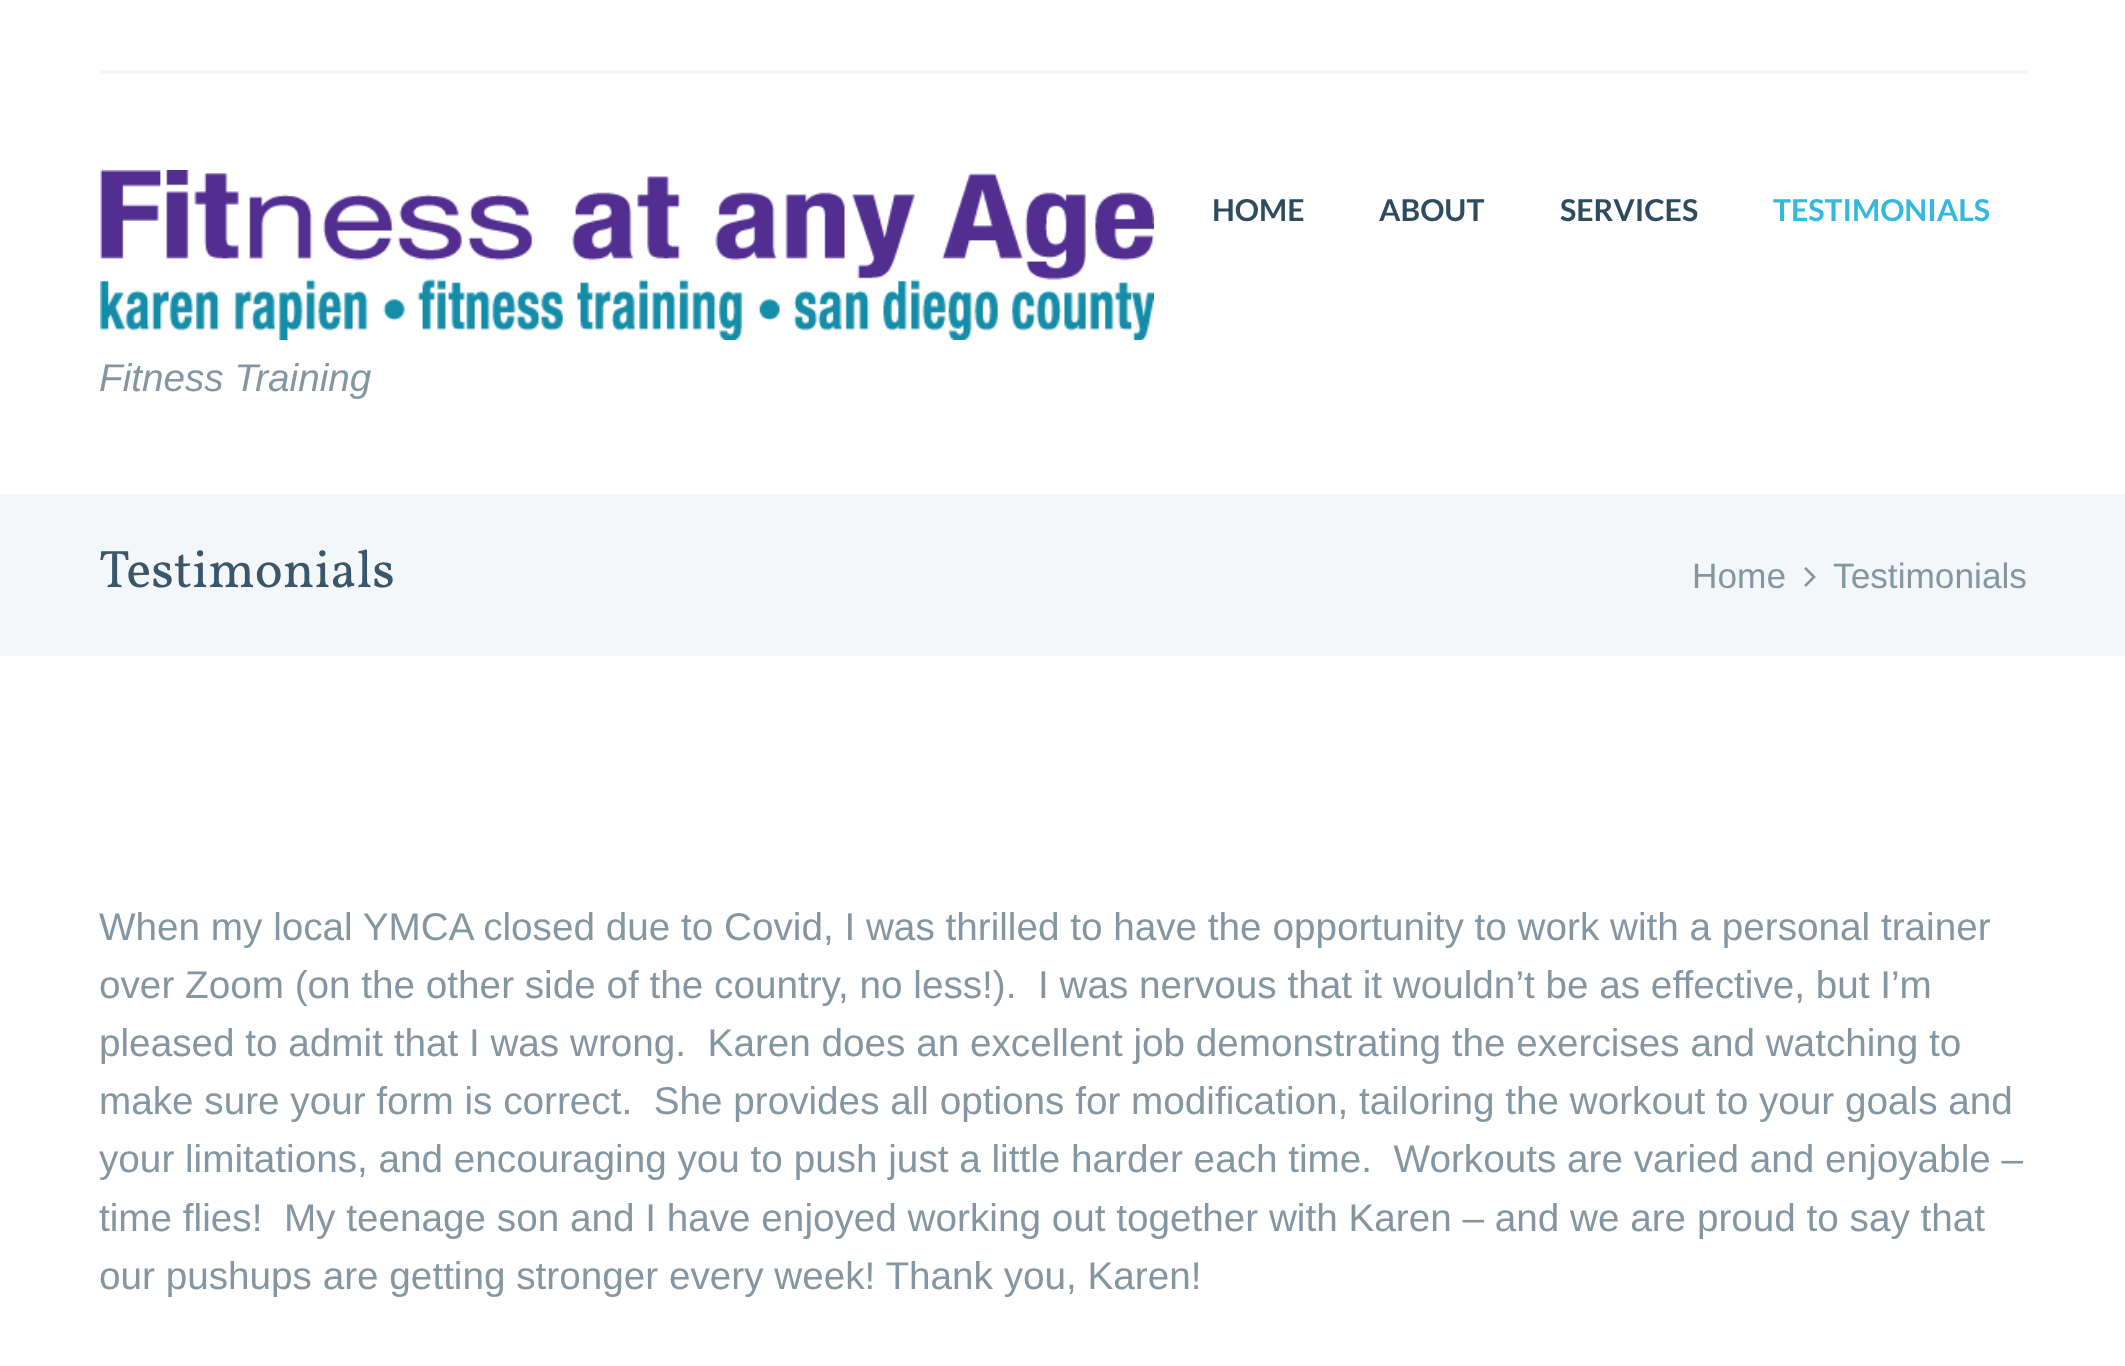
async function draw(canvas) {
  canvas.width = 2125;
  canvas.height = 1366;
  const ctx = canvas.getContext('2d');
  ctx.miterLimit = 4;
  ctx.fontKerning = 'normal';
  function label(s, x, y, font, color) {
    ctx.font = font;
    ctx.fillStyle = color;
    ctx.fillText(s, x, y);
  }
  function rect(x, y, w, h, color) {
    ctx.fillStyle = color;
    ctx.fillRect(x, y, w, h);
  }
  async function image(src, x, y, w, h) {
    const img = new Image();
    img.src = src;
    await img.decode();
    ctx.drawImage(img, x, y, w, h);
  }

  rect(0, 0, 2125, 1366, '#fff');
  rect(100, 70, 1928, 4, '#f4f7f9');
  label('HOME', 1212, 221, 'bold 30.25px Lato', '#2e4b5f');
  label('ABOUT', 1379, 221, 'bold 30.25px Lato', '#2e4b5f');
  label('SERVICES', 1560, 221, 'bold 30.25px Lato', '#2e4b5f');
  label('TESTIMONIALS', 1773, 221, 'bold 30.25px Lato', '#34b8dd');
  await image('assets/img1.png', 100, 170, 1054, 170);
  label('Fitness Training', 99, 391, 'italic 38.7px Liberation Sans', '#8496a2');
  rect(0, 494, 2125, 162, '#f4f7f9');
  label('Testimonials', 99, 587, '52.75px Vollkorn', '#3a5668');
  label('Home', 1692, 588, '35.25px Liberation Sans', '#8496a2');
  await image('assets/img2.png', 1804, 567, 12, 20);
  label('Testimonials', 1833, 588, '35.25px Liberation Sans', '#8496a2');
  label('When my local YMCA closed due to Covid, I was thrilled to have the opportunity to work with a personal trainer', 99, 940, '38.7px Liberation Sans', '#8496a2');
  label('over Zoom (on the other side of the country, no less!).  I was nervous that it wouldn’t be as effective, but I’m', 99, 998, '38.7px Liberation Sans', '#8496a2');
  label('pleased to admit that I was wrong.  Karen does an excellent job demonstrating the exercises and watching to', 99, 1056, '38.7px Liberation Sans', '#8496a2');
  label('make sure your form is correct.  She provides all options for modification, tailoring the workout to your goals and', 99, 1114, '38.7px Liberation Sans', '#8496a2');
  label('your limitations, and encouraging you to push just a little harder each time.  Workouts are varied and enjoyable –', 99, 1172, '38.7px Liberation Sans', '#8496a2');
  label('time flies!  My teenage son and I have enjoyed working out together with Karen – and we are proud to say that', 99, 1231, '38.7px Liberation Sans', '#8496a2');
  label('our pushups are getting stronger every week! Thank you, Karen!', 99, 1289, '38.7px Liberation Sans', '#8496a2');
}

draw(document.querySelector('canvas'));
